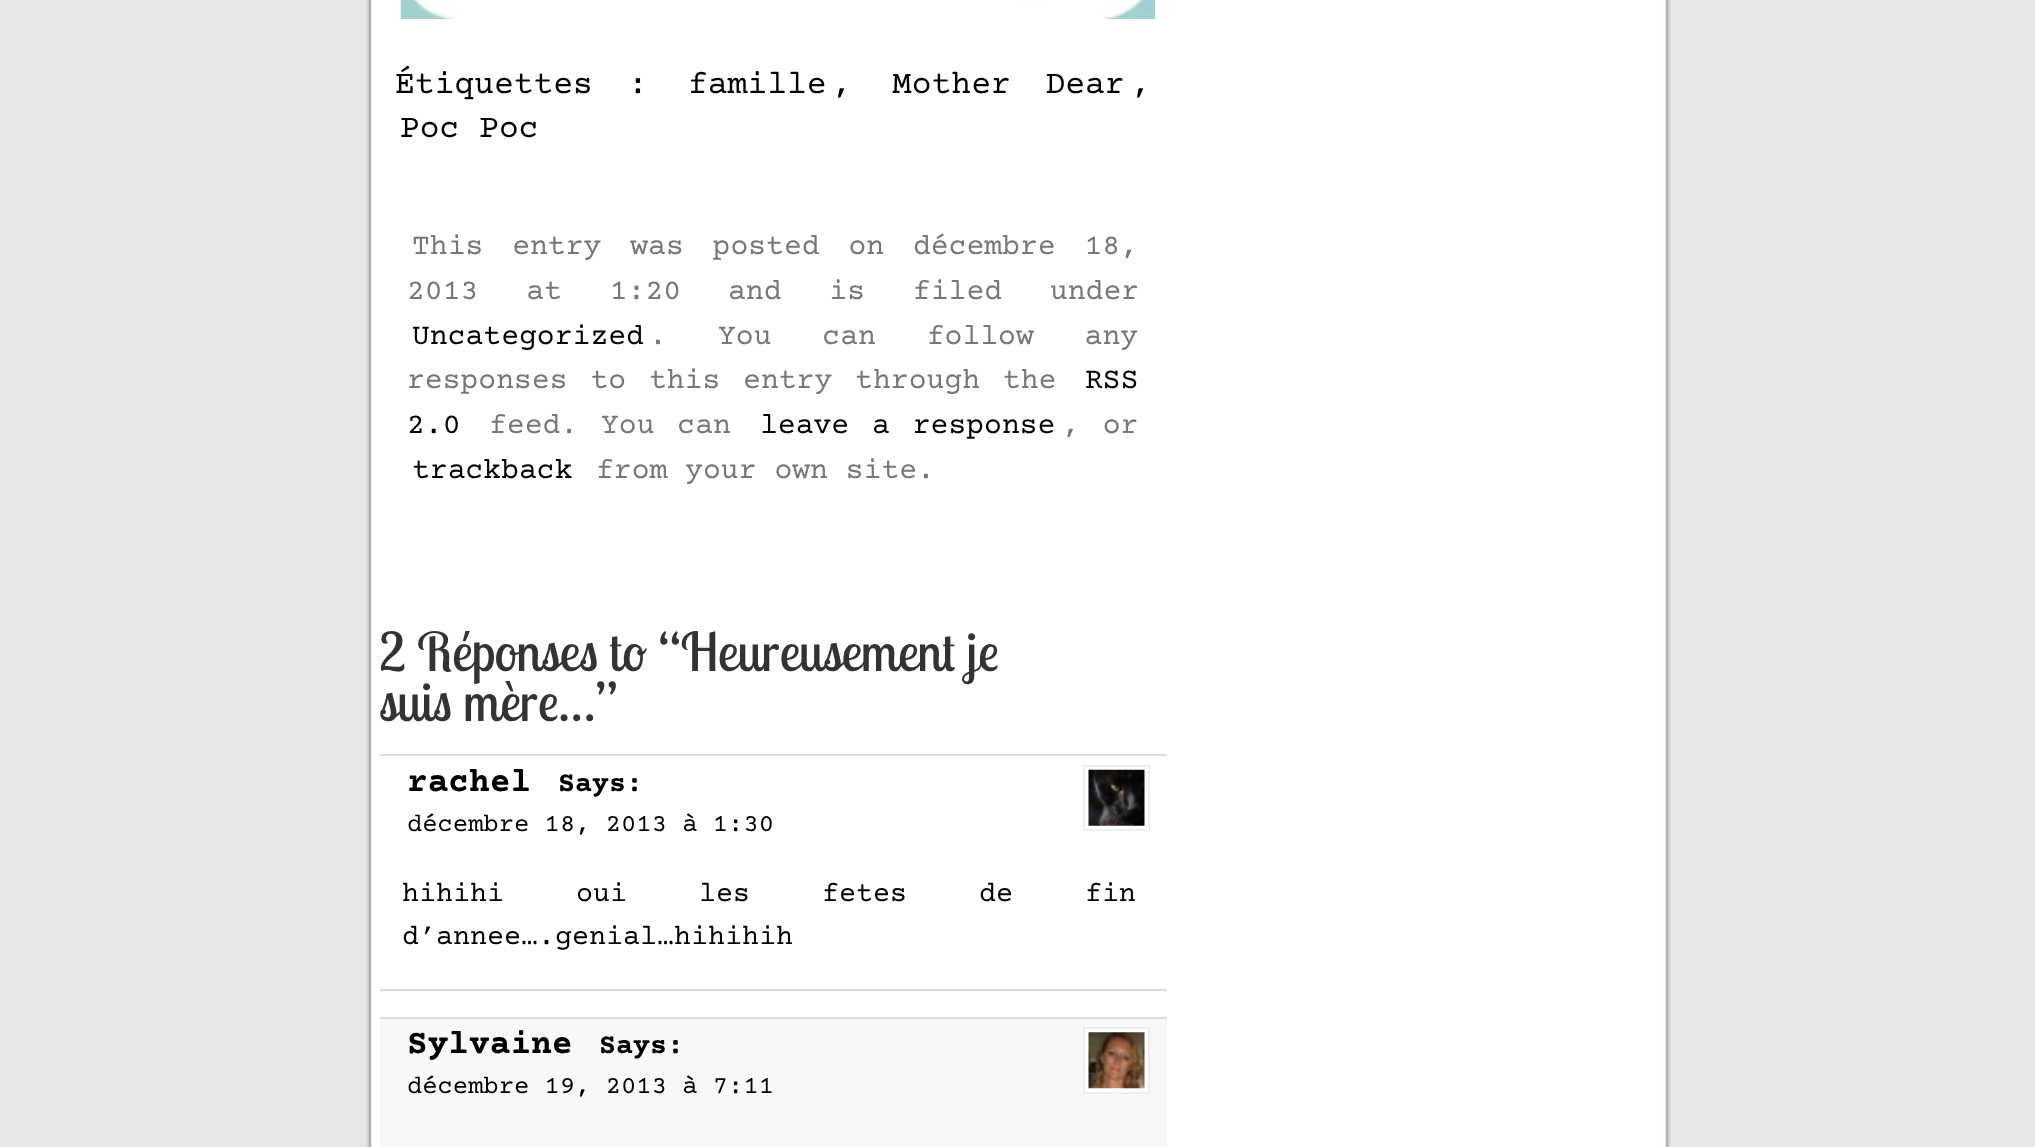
async function draw(canvas) {
  canvas.width = 2035;
  canvas.height = 1147;
  const ctx = canvas.getContext('2d');
  ctx.miterLimit = 4;
  ctx.fontKerning = 'none';
  function label(s, x, y, font, color) {
    ctx.font = font;
    ctx.fillStyle = color;
    ctx.fillText(s, x, y);
  }
  function rect(x, y, w, h, color) {
    ctx.fillStyle = color;
    ctx.fillRect(x, y, w, h);
  }
  async function image(src, x, y, w, h) {
    const img = new Image();
    img.src = src;
    await img.decode();
    ctx.drawImage(img, x, y, w, h);
  }

  rect(0, 0, 2035, 1147, '#e7e7e7');
  await image('assets/img1.png', 366, 0, 1305, 1147);
  await image('assets/img2.png', 400, 0, 755, 19);
  label('Étiquettes', 395, 93, '33px Courier Prime', '#000');
  label(':', 628, 93, '33px Courier Prime', '#000');
  label('famille', 688, 93, '33px Courier Prime', '#000');
  label(',', 832, 93, '33px Courier Prime', '#000');
  ctx.wordSpacing = '15px';
  label('Mother Dear', 892, 93, '33px Courier Prime', '#000');
  ctx.wordSpacing = '0px';
  label(',', 1131, 93, '33px Courier Prime', '#000');
  label('Poc Poc', 400, 137, '33px Courier Prime', '#000');
  ctx.wordSpacing = '11px';
  label('This entry was posted on décembre 18,', 412, 254, '29.75px Courier Prime', '#777');
  ctx.wordSpacing = '30px';
  label('2013 at 1:20', 407, 299, '29.75px Courier Prime', '#777');
  label('and is filed under', 728, 299, '29.75px Courier Prime', '#777');
  ctx.wordSpacing = '0px';
  label('Uncategorized', 412, 344, '29.75px Courier Prime', '#000');
  label('.', 649, 344, '29.75px Courier Prime', '#777');
  ctx.wordSpacing = '33px';
  label('You can follow any', 718, 344, '29.75px Courier Prime', '#777');
  ctx.wordSpacing = '5px';
  label('responses to this entry through the', 407, 388, '29.75px Courier Prime', '#777');
  ctx.wordSpacing = '0px';
  label('RSS', 1085, 388, '29.75px Courier Prime', '#000');
  label('2.0', 407, 433, '29.75px Courier Prime', '#000');
  label('feed.', 489, 433, '29.75px Courier Prime', '#777');
  ctx.wordSpacing = '5px';
  label('You can', 601, 433, '29.75px Courier Prime', '#777');
  label('leave a response', 760, 433, '29.75px Courier Prime', '#000');
  label(', or', 1062, 433, '29.75px Courier Prime', '#777');
  ctx.wordSpacing = '0px';
  label('trackback', 412, 478, '29.75px Courier Prime', '#000');
  label('from your own site.', 596, 478, '29.75px Courier Prime', '#777');
  label('2 Réponses to “Heureusement je', 379, 671, '53.25px Lobster Two', '#333');
  label('suis mère…”', 379, 721, '53.25px Lobster Two', '#333');
  rect(380, 754, 787, 2, '#ddd');
  rect(380, 989, 787, 2, '#ddd');
  label('rachel', 407, 791, 'bold 34.5px Courier Prime', '#000');
  label('Says:', 558, 791, 'bold 28.35px Courier Prime', '#000');
  ctx.strokeStyle = '#eee';
  ctx.lineWidth = 2;
  ctx.strokeRect(1084, 766, 65, 64);
  await image('assets/img3.png', 1088, 769, 57, 57);
  label('décembre 18, 2013 à 1:30', 407, 831, '25.5px Courier Prime', '#000');
  ctx.wordSpacing = '55px';
  label('hihihi oui les fetes de fin', 402, 901, '28.35px Courier Prime', '#000');
  ctx.wordSpacing = '0px';
  label('d’annee….genial…hihihih', 402, 944, '28.35px Courier Prime', '#000');
  rect(380, 1019, 787, 128, '#f8f8f8');
  rect(380, 1017, 787, 2, '#ddd');
  label('Sylvaine', 407, 1053, 'bold 34.5px Courier Prime', '#000');
  label('Says:', 599, 1053, 'bold 28.35px Courier Prime', '#000');
  ctx.fillStyle = '#fff';
  ctx.beginPath();
  ctx.rect(1084, 1028, 65, 65);
  ctx.fill();
  ctx.stroke();
  await image('assets/img4.png', 1088, 1032, 57, 57);
  label('décembre 19, 2013 à 7:11', 407, 1093, '25.5px Courier Prime', '#000');
}

draw(document.querySelector('canvas'));
